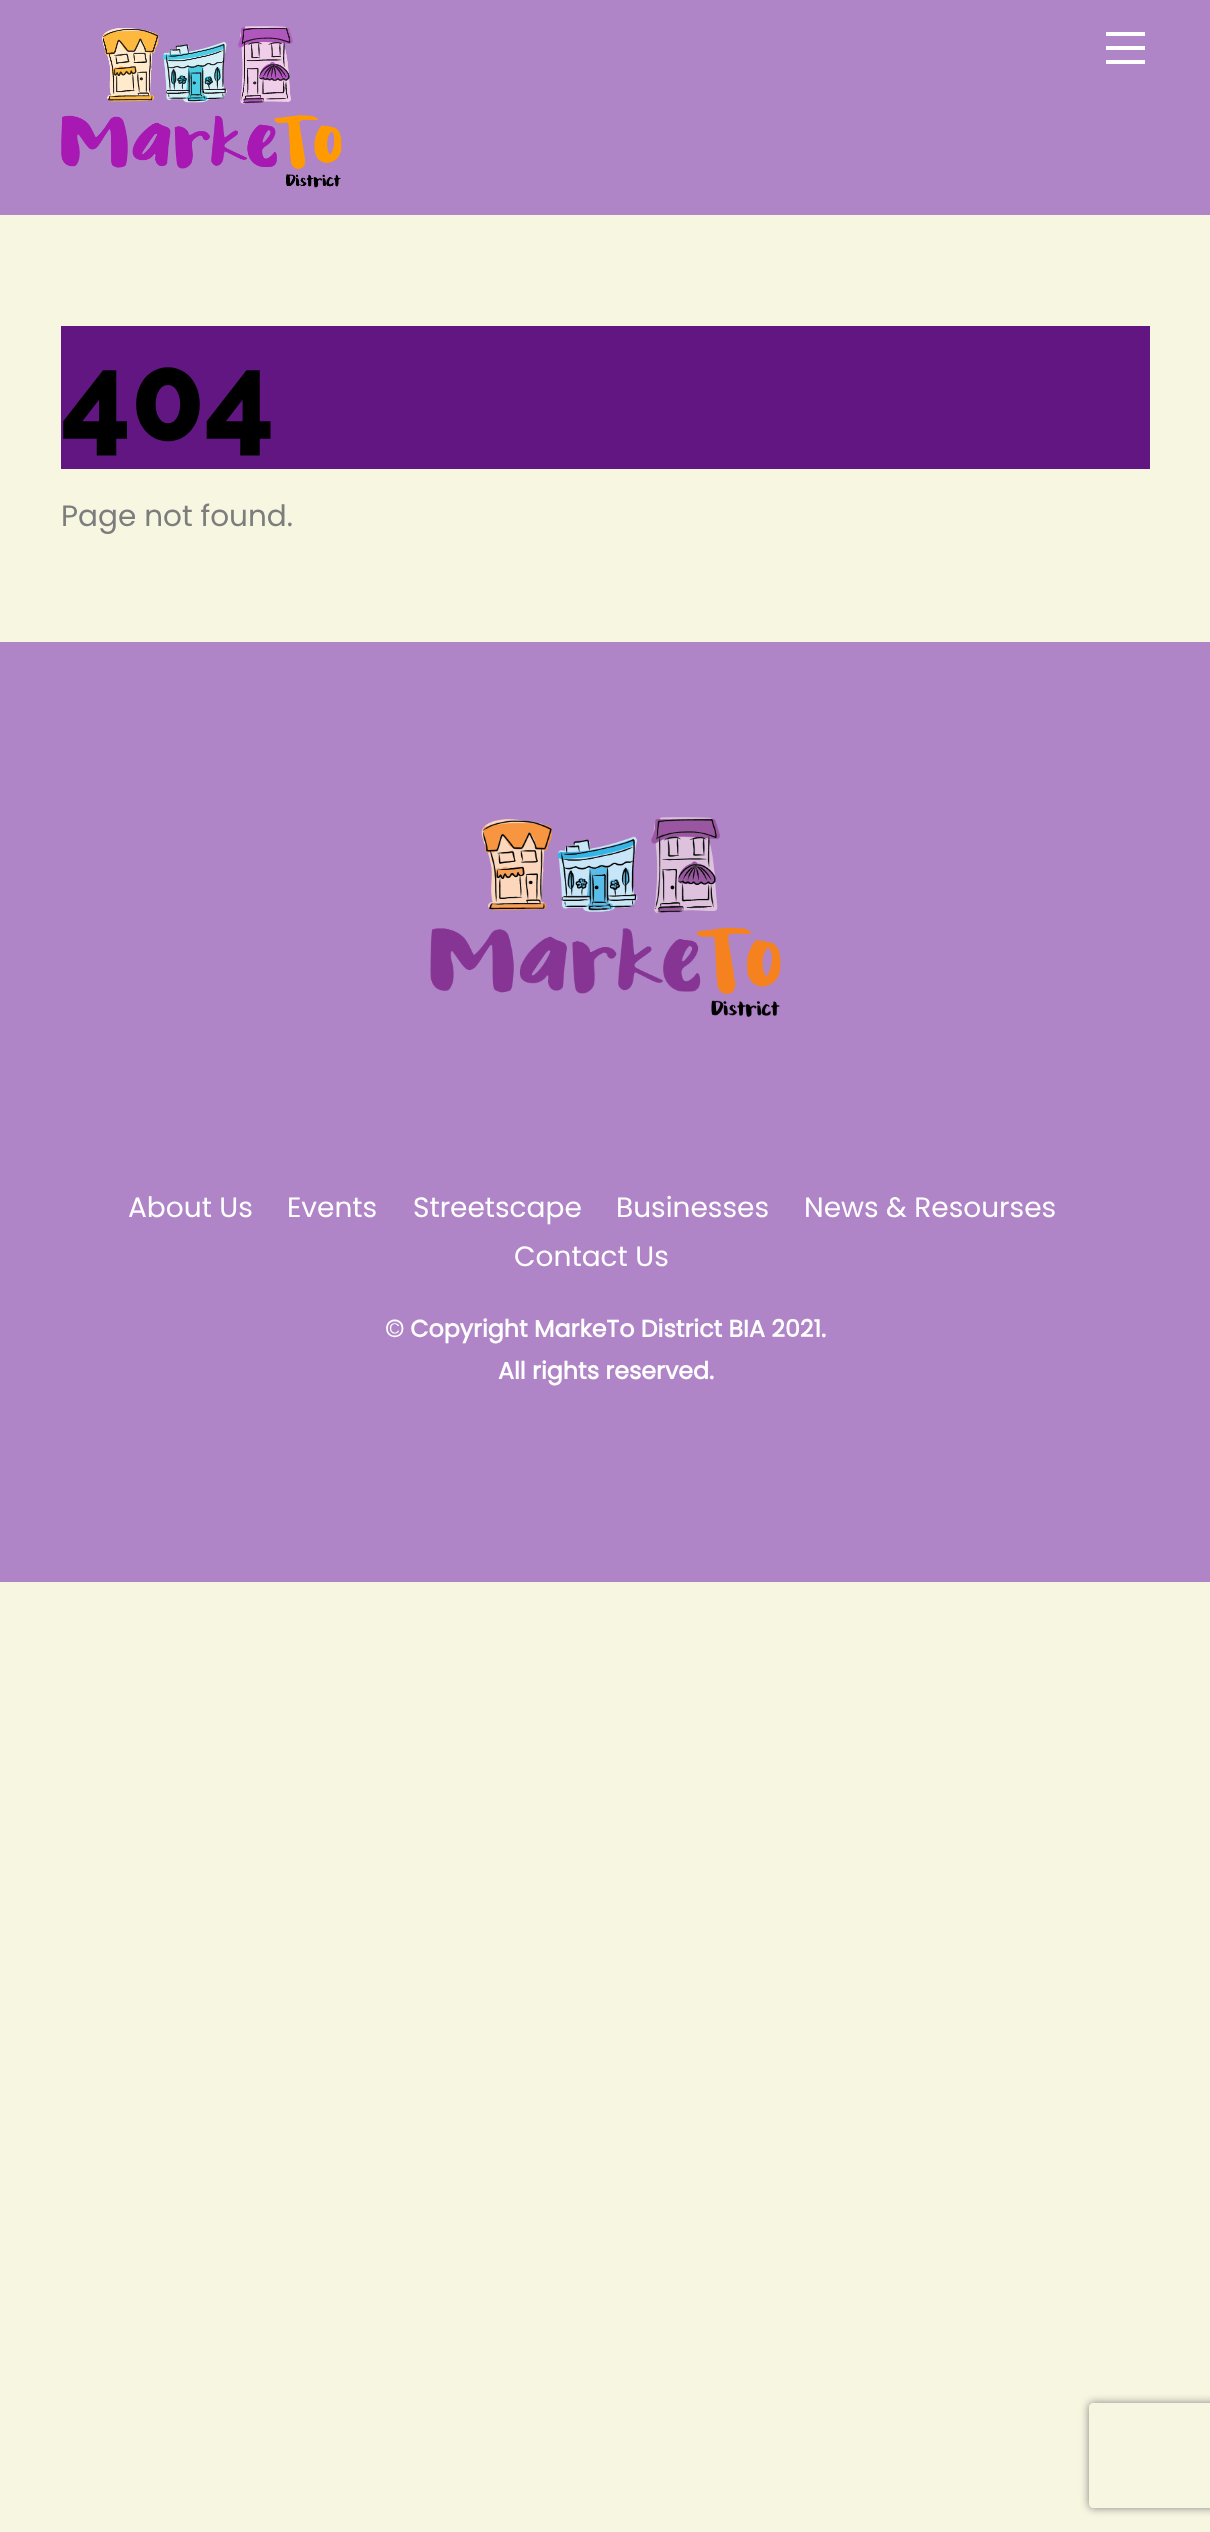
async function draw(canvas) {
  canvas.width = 1210;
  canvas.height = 2532;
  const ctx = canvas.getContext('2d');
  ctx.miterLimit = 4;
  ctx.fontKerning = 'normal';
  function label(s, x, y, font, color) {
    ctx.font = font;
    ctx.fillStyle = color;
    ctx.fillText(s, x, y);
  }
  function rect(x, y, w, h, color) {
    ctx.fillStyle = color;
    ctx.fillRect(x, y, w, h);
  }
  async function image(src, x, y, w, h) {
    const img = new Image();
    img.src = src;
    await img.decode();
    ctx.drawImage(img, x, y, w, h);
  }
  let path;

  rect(0, 0, 1210, 2532, '#f7f6e1');
  rect(0, 0, 1210, 215, '#b085c7');
  await image('assets/img1.png', 61, 26, 281, 162);
  rect(1106, 60, 39, 4, '#fff');
  rect(1106, 32, 39, 4, '#fff');
  rect(1106, 46, 39, 4, '#fff');
  rect(61, 326, 1089, 143, '#621682');
  ctx.letterSpacing = '-1px';
  label('404', 61, 440, '800 122px Raleway', '#000');
  ctx.letterSpacing = '0px';
  label('Page not found.', 61, 526, '29.5px Poppins', '#7d7d7d');
  rect(0, 642, 1210, 940, '#b085c7');
  await image('assets/img2.png', 430, 817, 351, 200);
  label('About Us', 128, 1217, '28px Poppins', '#fff');
  label('Events', 287, 1217, '28px Poppins', '#fff');
  label('Streetscape', 413, 1217, '28px Poppins', '#fff');
  label('Businesses', 616, 1217, '28px Poppins', '#fff');
  label('News & Resourses', 804, 1217, '28px Poppins', '#fff');
  label('Contact Us', 514, 1266, '28px Poppins', '#fff');
  label('© Copyright MarkeTo District BIA 2021.', 385, 1337, 'bold 23.75px Poppins', '#fff');
  label('All rights reserved.', 498, 1379, 'bold 23.75px Poppins', '#fff');
  ctx.save();
  path = new Path2D('M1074 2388H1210V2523H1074ZM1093 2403H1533C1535 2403 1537 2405 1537 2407V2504C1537 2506 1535 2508 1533 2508H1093C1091 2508 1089 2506 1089 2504V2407C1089 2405 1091 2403 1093 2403Z');
  ctx.clip(path, 'evenodd');
  ctx.fillStyle = '#808080';
  ctx.filter = 'blur(4.5px)';
  ctx.beginPath();
  ctx.roundRect(1089, 2403, 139, 105, 4);
  ctx.fill();
  ctx.filter = 'none';
  ctx.restore();
}

draw(document.querySelector('canvas'));
